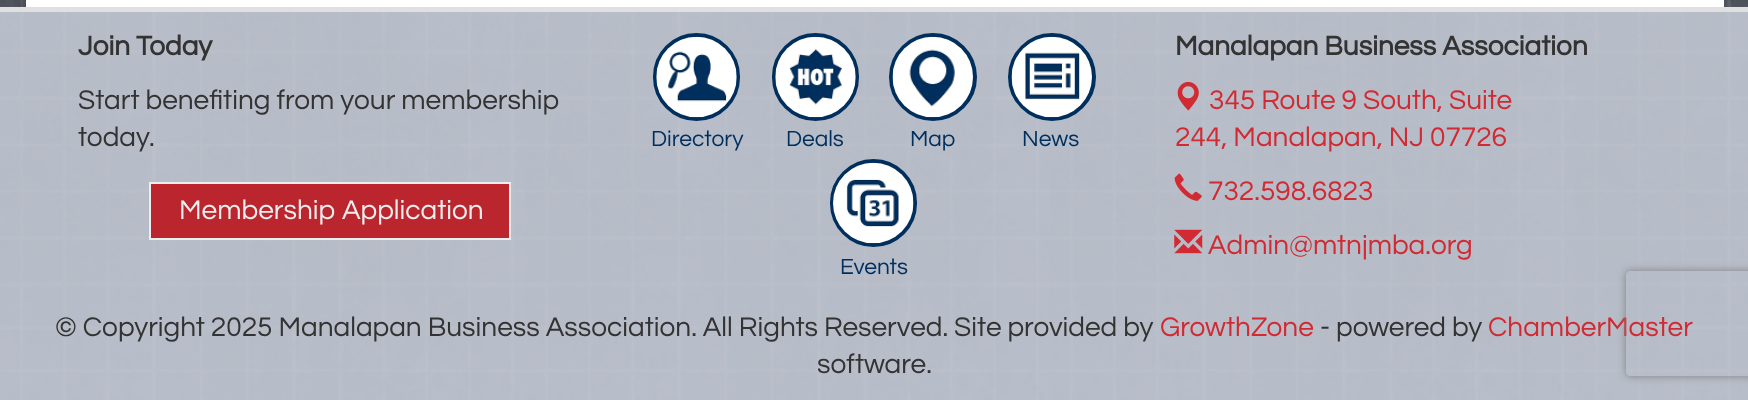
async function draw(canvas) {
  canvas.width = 1748;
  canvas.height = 400;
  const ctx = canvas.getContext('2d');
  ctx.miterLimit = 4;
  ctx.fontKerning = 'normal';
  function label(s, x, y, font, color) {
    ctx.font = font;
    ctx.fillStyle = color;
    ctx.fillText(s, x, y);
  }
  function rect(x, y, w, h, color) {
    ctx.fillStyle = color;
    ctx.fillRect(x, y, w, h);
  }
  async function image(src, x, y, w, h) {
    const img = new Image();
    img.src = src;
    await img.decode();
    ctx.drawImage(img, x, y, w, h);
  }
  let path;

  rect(0, 0, 1748, 400, '#707070');
  rect(0, 12, 1748, 388, '#bec3cc');
  await image('assets/img1.png', 0, 0, 1748, 400);
  rect(26, 0, 1698, 7, '#fff');
  rect(0, 7, 1748, 5, '#e0e0e0');
  label('Join Today', 78, 55, 'bold 28px Questrial', '#333');
  label('Start benefiting from your membership', 78, 109, '28px Questrial', '#333');
  label('today.', 78, 146, '28px Questrial', '#333');
  ctx.fillStyle = '#bb252d';
  ctx.beginPath();
  ctx.rect(150, 183, 360, 56);
  ctx.fill();
  ctx.strokeStyle = '#eee';
  ctx.lineWidth = 2;
  ctx.stroke();
  label('Membership Application', 179, 219, '28px Questrial', '#eee');
  ctx.fillStyle = '#002f5e';
  ctx.beginPath();
  ctx.roundRect(655, 35, 83, 84, 41.5);
  ctx.fill();
  ctx.strokeStyle = '#002f5e';
  ctx.lineWidth = 4;
  ctx.stroke();
  await image('assets/img2.png', 656, 36, 81, 82);
  label('Directory', 651, 146, '22.75px Questrial', '#002f5e');
  ctx.beginPath();
  ctx.roundRect(774, 35, 83, 84, 41.5);
  ctx.fill();
  ctx.stroke();
  await image('assets/img3.png', 775, 36, 81, 82);
  label('Deals', 786, 146, '22.75px Questrial', '#002f5e');
  ctx.beginPath();
  ctx.arc(933, 77, 42, 0, 2 * Math.PI);
  ctx.fill();
  ctx.stroke();
  await image('assets/img4.png', 892, 36, 81, 82);
  label('Map', 910, 146, '22.75px Questrial', '#002f5e');
  ctx.beginPath();
  ctx.arc(1052, 77, 42, 0, 2 * Math.PI);
  ctx.fill();
  ctx.stroke();
  await image('assets/img5.png', 1011, 36, 81, 82);
  label('News', 1022, 146, '22.75px Questrial', '#002f5e');
  ctx.beginPath();
  ctx.roundRect(832, 161, 83, 84, 41.5);
  ctx.fill();
  ctx.stroke();
  await image('assets/img6.png', 833, 162, 81, 82);
  label('Events', 840, 274, '22.75px Questrial', '#002f5e');
  label('Manalapan Business Association', 1175, 55, 'bold 28px Questrial', '#333');
  await image('assets/img7.png', 1177, 81, 22, 30);
  label('345 Route 9 South, Suite', 1209, 109, '28px Questrial', '#d12a32');
  label('244, Manalapan, NJ 07726', 1175, 146, '28px Questrial', '#d12a32');
  await image('assets/img8.png', 1174, 173, 28, 28);
  label('732.598.6823', 1208, 200, '28px Questrial', '#d12a32');
  await image('assets/img9.png', 1174, 229, 29, 25);
  label('Admin@mtnjmba.org', 1208, 254, '28px Questrial', '#d12a32');
  label('© Copyright 2025 Manalapan Business Association. All Rights Reserved. Site provided by', 55, 336, '28px Questrial', '#333');
  label('GrowthZone', 1160, 336, '28px Questrial', '#d12a32');
  label('- powered by', 1320, 336, '28px Questrial', '#333');
  label('ChamberMaster', 1488, 336, '28px Questrial', '#d12a32');
  label('software.', 817, 373, '28px Questrial', '#333');
  ctx.save();
  path = new Path2D('M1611 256H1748V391H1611ZM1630 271H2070C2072 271 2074 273 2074 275V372C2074 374 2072 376 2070 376H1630C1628 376 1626 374 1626 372V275C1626 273 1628 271 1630 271Z');
  ctx.clip(path, 'evenodd');
  ctx.fillStyle = '#808080';
  ctx.filter = 'blur(4.5px)';
  ctx.beginPath();
  ctx.roundRect(1626, 271, 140, 105, 4);
  ctx.fill();
  ctx.filter = 'none';
  ctx.restore();
}

draw(document.querySelector('canvas'));
